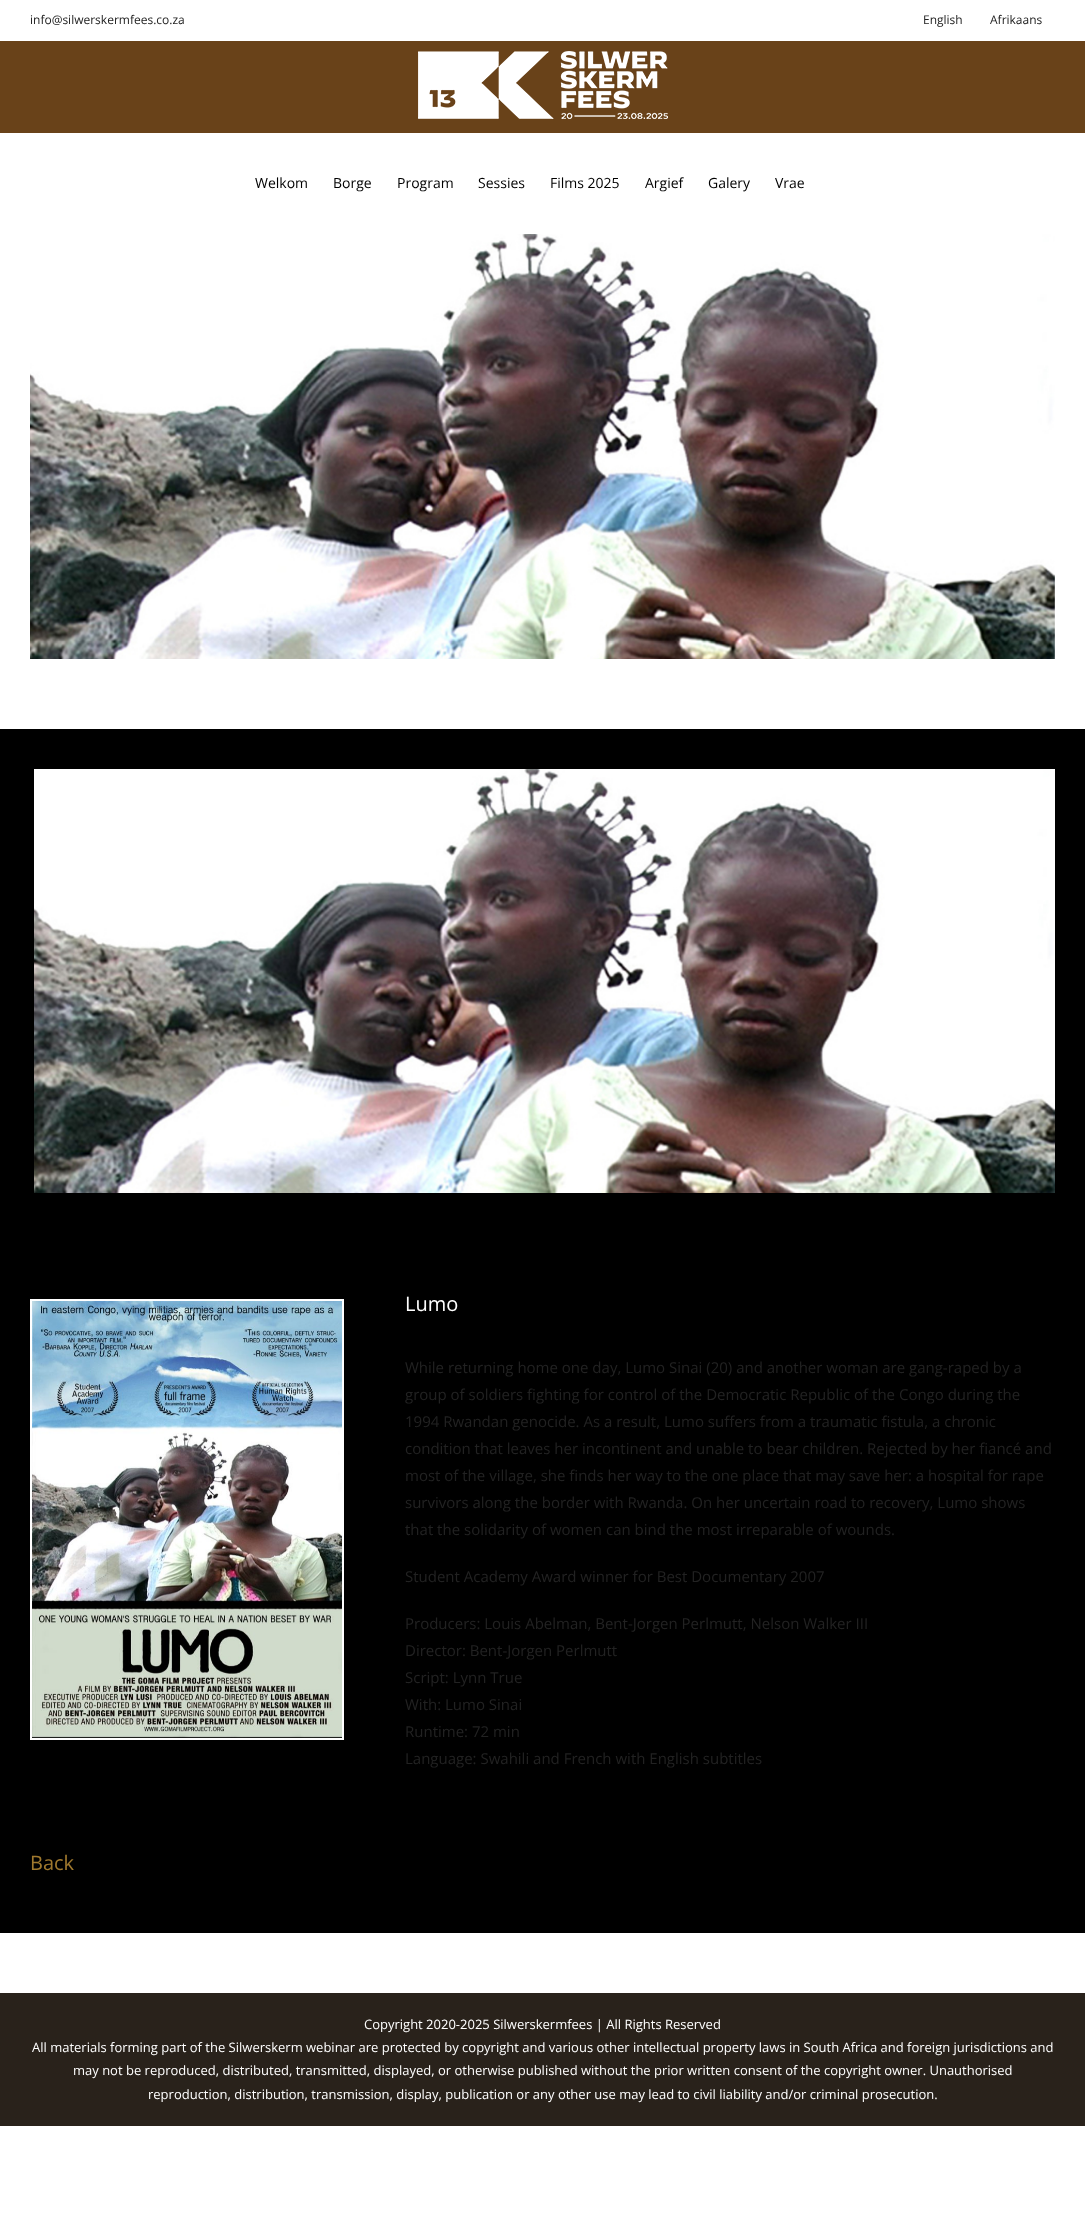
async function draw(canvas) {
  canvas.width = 1085;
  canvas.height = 2220;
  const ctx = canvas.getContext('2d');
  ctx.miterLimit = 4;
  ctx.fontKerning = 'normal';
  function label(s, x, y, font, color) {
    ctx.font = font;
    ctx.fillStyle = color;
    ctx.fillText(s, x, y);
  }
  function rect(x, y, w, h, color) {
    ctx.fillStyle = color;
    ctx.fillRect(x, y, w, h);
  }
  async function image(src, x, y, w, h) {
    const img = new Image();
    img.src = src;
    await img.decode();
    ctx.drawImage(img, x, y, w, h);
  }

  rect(0, 0, 1085, 2220, '#fff');
  label('info@silwerskermfees.co.za', 30, 24, '12px Open Sans', '#222');
  label('English', 923, 24, '12px Open Sans', '#222');
  label('Afrikaans', 990, 24, '12px Open Sans', '#222');
  rect(0, 41, 1085, 92, '#694219');
  await image('assets/img1.png', 418, 51, 250, 68);
  label('Welkom', 255, 188, '14px Open Sans', '#000');
  label('Borge', 333, 188, '14px Open Sans', '#000');
  label('Program', 397, 188, '14px Open Sans', '#000');
  label('Sessies', 478, 188, '14px Open Sans', '#000');
  label('Films 2025', 550, 188, '14px Open Sans', '#000');
  label('Argief', 645, 188, '14px Open Sans', '#000');
  label('Galery', 708, 188, '14px Open Sans', '#000');
  label('Vrae', 775, 188, '14px Open Sans', '#000');
  await image('assets/img2.png', 30, 234, 1025, 425);
  rect(0, 729, 1085, 1204, '#000');
  await image('assets/img3.png', 34, 769, 1021, 424);
  ctx.strokeStyle = '#fff';
  ctx.lineWidth = 2;
  ctx.strokeRect(31, 1300, 312, 439);
  await image('assets/img4.png', 32, 1301, 310, 437);
  label('Lumo', 405, 1311, '20px Open Sans', '#fff');
  label('While returning home one day, Lumo Sinai (20) and another woman are gang-raped by a', 405, 1373, '15px Open Sans', '#222');
  label('group of soldiers fighting for control of the Democratic Republic of the Congo during the', 405, 1400, '15px Open Sans', '#222');
  label('1994 Rwandan genocide. As a result, Lumo suffers from a traumatic fistula, a chronic', 405, 1427, '15px Open Sans', '#222');
  label('condition that leaves her incontinent and unable to bear children. Rejected by her fiancé and', 405, 1454, '15px Open Sans', '#222');
  label('most of the village, she finds her way to the one place that may save her: a hospital for rape', 405, 1481, '15px Open Sans', '#222');
  label('survivors along the border with Rwanda. On her uncertain road to recovery, Lumo shows', 405, 1508, '15px Open Sans', '#222');
  label('that the solidarity of women can bind the most irreparable of wounds.', 405, 1535, '15px Open Sans', '#222');
  label('Student Academy Award winner for Best Documentary 2007', 405, 1582, '15px Open Sans', '#222');
  label('Producers: Louis Abelman, Bent-Jorgen Perlmutt, Nelson Walker III', 405, 1629, '15px Open Sans', '#222');
  label('Director: Bent-Jorgen Perlmutt', 405, 1656, '15px Open Sans', '#222');
  label('Script: Lynn True', 405, 1683, '15px Open Sans', '#222');
  label('With: Lumo Sinai', 405, 1710, '15px Open Sans', '#222');
  label('Runtime: 72 min', 405, 1737, '15px Open Sans', '#222');
  label('Language: Swahili and French with English subtitles', 405, 1764, '15px Open Sans', '#222');
  label('Back', 30, 1870, '20px Open Sans', '#a0792e');
  rect(0, 1993, 1085, 133, '#29221b');
  label('Copyright 2020-2025 Silwerskermfees | All Rights Reserved', 364, 2029, '13px Open Sans', '#fff');
  label('All materials forming part of the Silwerskerm webinar are protected by copyright and various other intellectual property laws in South Africa and foreign jurisdictions and', 32, 2052, '13px Open Sans', '#fff');
  label('may not be reproduced, distributed, transmitted, displayed, or otherwise published without the prior written consent of the copyright owner. Unauthorised', 73, 2075, '13px Open Sans', '#fff');
  label('reproduction, distribution, transmission, display, publication or any other use may lead to civil liability and/or criminal prosecution.', 148, 2099, '13px Open Sans', '#fff');
}

draw(document.querySelector('canvas'));
